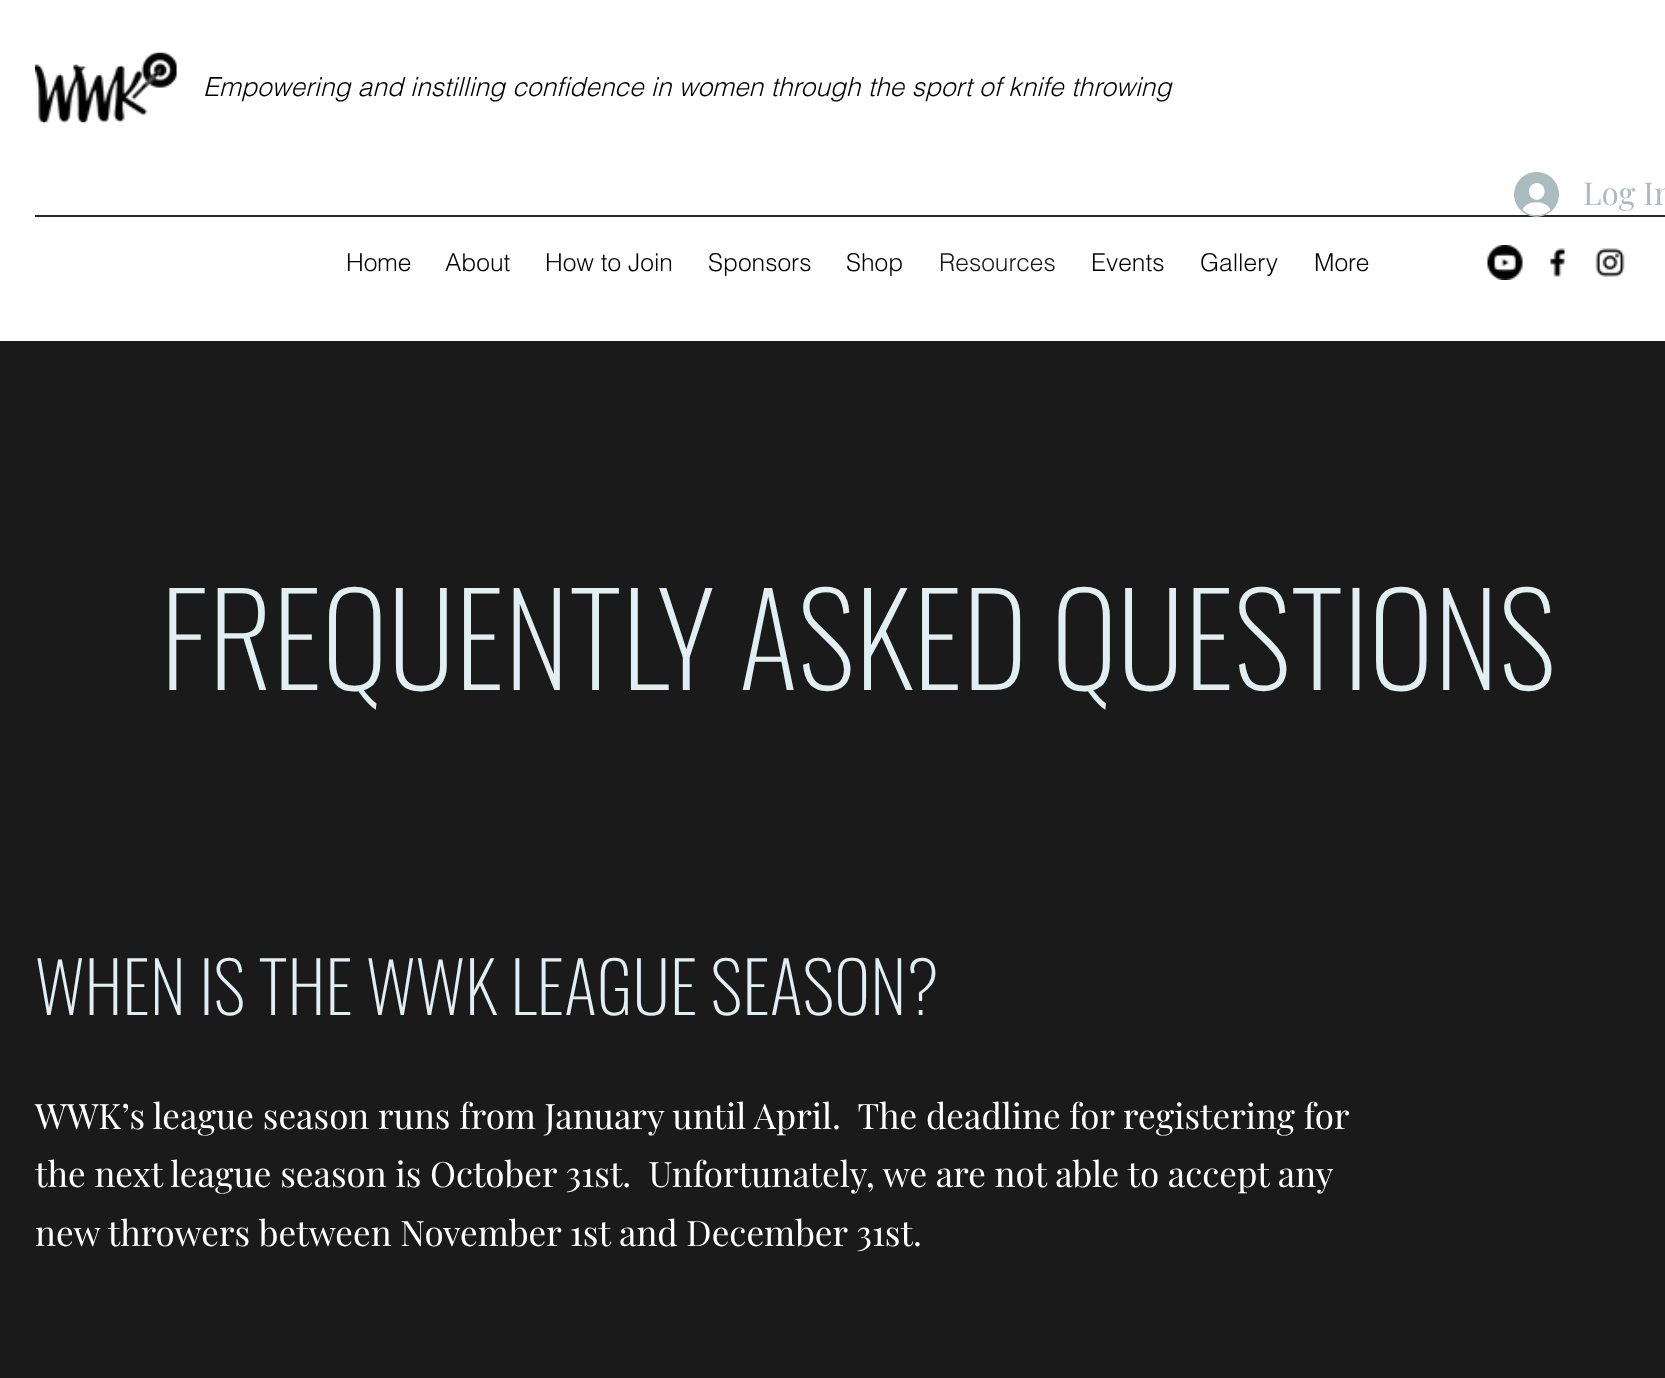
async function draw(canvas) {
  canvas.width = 1665;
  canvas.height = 1378;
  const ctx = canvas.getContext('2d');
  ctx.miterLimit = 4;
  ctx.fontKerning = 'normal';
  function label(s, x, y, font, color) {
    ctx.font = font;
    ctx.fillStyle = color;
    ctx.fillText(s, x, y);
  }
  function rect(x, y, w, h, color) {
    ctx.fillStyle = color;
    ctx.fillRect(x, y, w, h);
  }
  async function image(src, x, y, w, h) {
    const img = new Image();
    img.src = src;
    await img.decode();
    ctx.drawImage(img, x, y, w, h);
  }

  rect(0, 0, 1665, 1378, '#fff');
  await image('assets/img1.png', 35, 52, 142, 71);
  label('Empowering and instilling confidence in women through the sport of knife throwing', 203, 96, 'italic 300 26.25px helvetica', '#000');
  rect(35, 215, 1630, 2, '#262626');
  await image('assets/img2.png', 1514, 172, 45, 45);
  label('Log In', 1583, 205, '31.5px Playfair Display', '#aabcbf');
  label('Home', 346, 271, '300 24.5px helvetica', '#000');
  label('About', 445, 271, '300 24.5px helvetica', '#000');
  label('How to Join', 545, 271, '300 24.5px helvetica', '#000');
  label('Sponsors', 708, 271, '300 24.5px helvetica', '#000');
  label('Shop', 846, 271, '300 24.5px helvetica', '#000');
  label('Resources', 939, 271, '300 24.5px helvetica', '#1a1a1a');
  label('Events', 1091, 271, '300 24.5px helvetica', '#000');
  label('Gallery', 1200, 271, '300 24.5px helvetica', '#000');
  label('More', 1314, 271, '300 24.5px helvetica', '#000');
  await image('assets/img3.png', 1487, 245, 36, 35);
  await image('assets/img4.png', 1550, 248, 16, 29);
  await image('assets/img5.png', 1595, 248, 30, 29);
  rect(0, 341, 1665, 1037, '#1a1a1a');
  label('FREQUENTLY ASKED QUESTIONS', 160, 690, '200 126px Oswald', '#e1eff2');
  label('WHEN IS THE WWK LEAGUE SEASON?', 35, 1015, '200 70px Oswald', '#e1eff2');
  label('WWK’s league season runs from January until April.  The deadline for registering for', 35, 1129, '35px Playfair Display', '#fff');
  label('the next league season is October 31st.  Unfortunately, we are not able to accept any', 35, 1187, '35px Playfair Display', '#fff');
  label('new throwers between November 1st and December 31st.', 35, 1246, '35px Playfair Display', '#fff');
}

draw(document.querySelector('canvas'));
